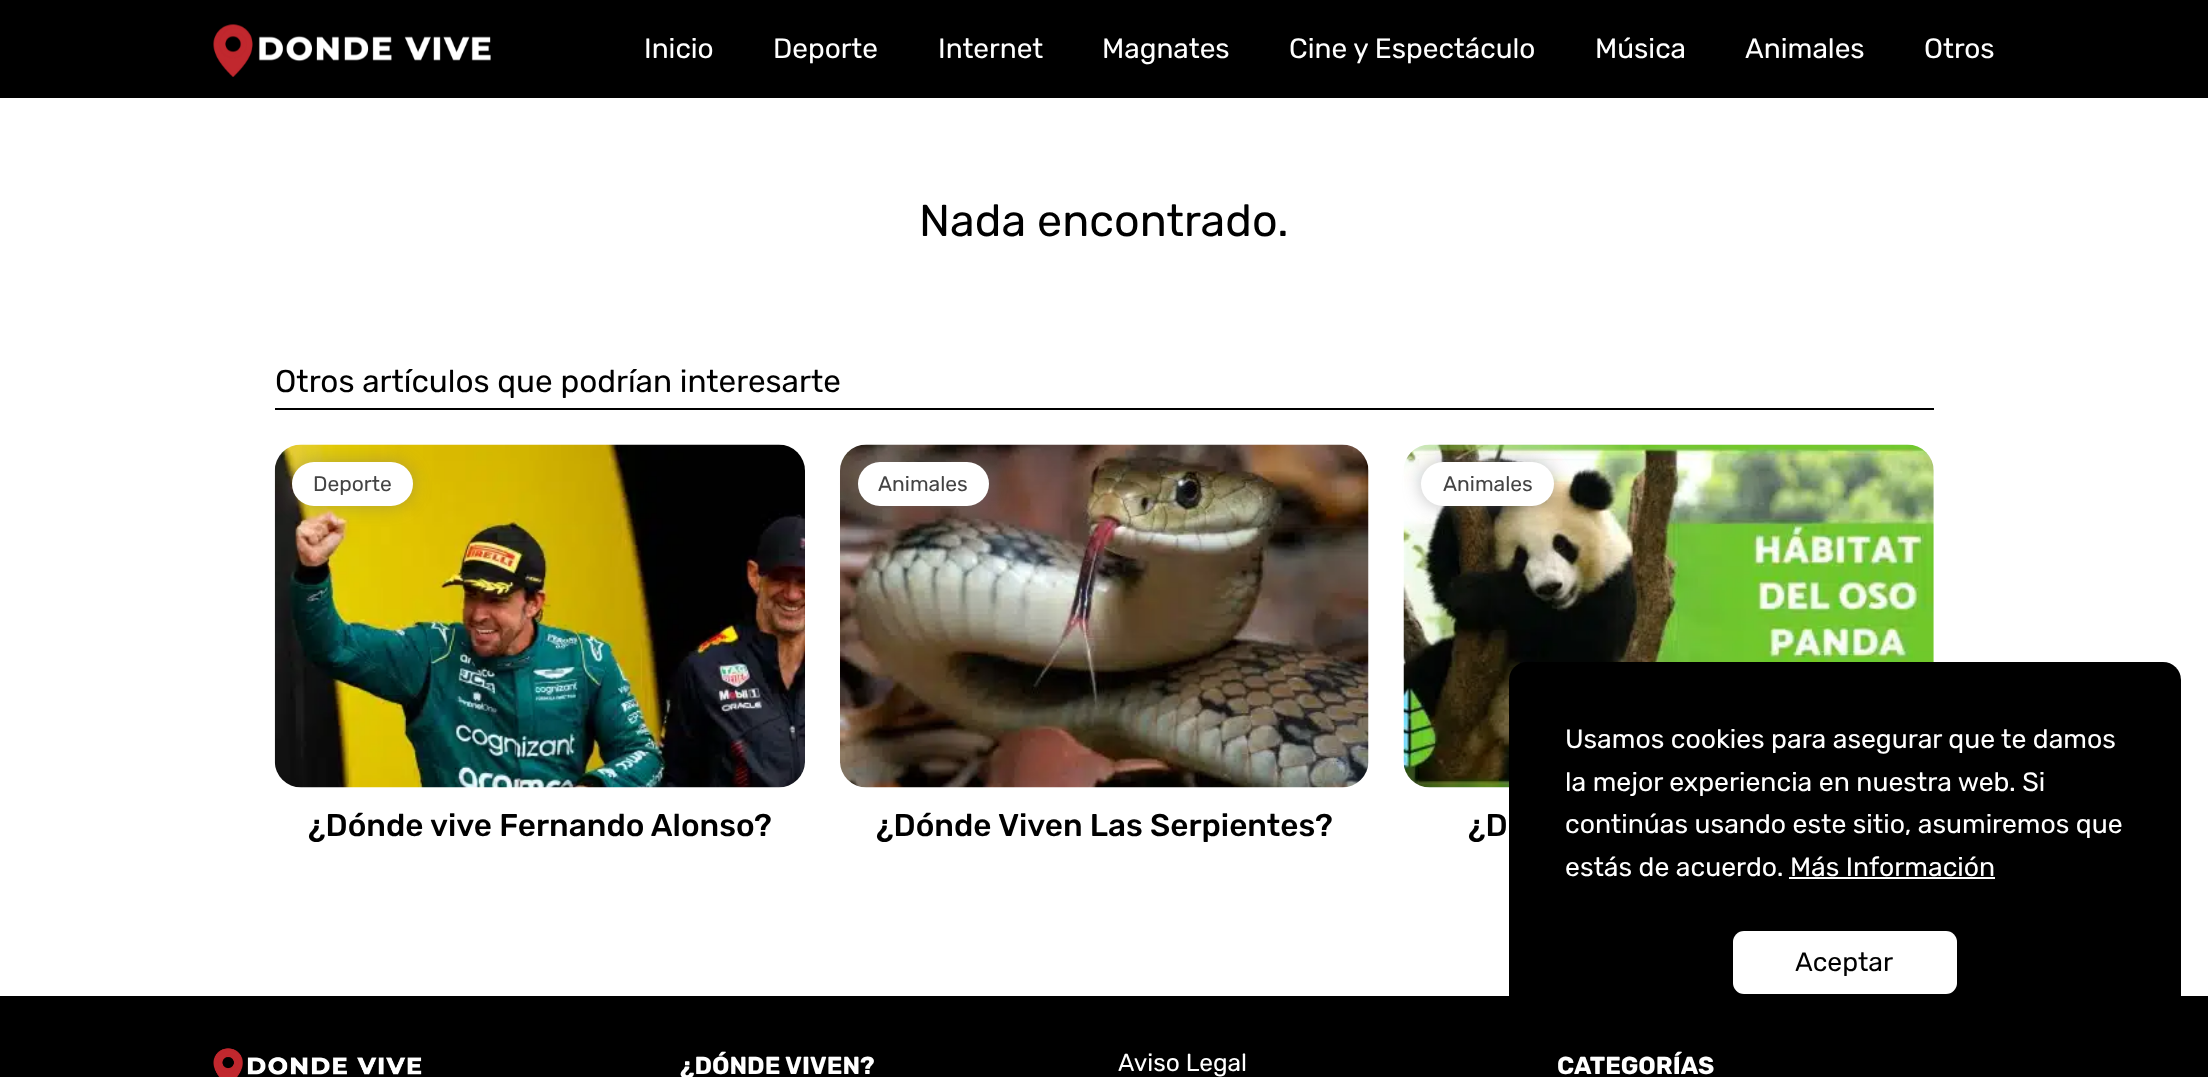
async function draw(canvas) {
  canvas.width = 2208;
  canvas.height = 1077;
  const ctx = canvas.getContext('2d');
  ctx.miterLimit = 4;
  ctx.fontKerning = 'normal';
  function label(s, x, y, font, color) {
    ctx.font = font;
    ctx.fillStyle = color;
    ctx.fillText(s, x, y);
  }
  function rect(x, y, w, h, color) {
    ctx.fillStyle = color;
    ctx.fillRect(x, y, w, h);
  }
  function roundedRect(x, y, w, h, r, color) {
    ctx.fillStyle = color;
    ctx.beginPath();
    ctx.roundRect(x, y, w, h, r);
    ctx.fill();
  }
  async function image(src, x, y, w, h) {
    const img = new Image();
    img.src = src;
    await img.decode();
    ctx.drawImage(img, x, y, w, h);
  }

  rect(0, 0, 2208, 1077, '#fff');
  rect(0, 0, 2208, 98, '#000');
  await image('assets/img1.png', 213, 24, 278, 53);
  label('Inicio', 644, 58, '28px Rubik', '#fff');
  label('Deporte', 773, 58, '28px Rubik', '#fff');
  label('Internet', 938, 58, '28px Rubik', '#fff');
  label('Magnates', 1102, 58, '28px Rubik', '#fff');
  label('Cine y Espectáculo', 1289, 58, '28px Rubik', '#fff');
  label('Música', 1595, 58, '28px Rubik', '#fff');
  label('Animales', 1745, 58, '28px Rubik', '#fff');
  label('Otros', 1924, 58, '28px Rubik', '#fff');
  label('Nada encontrado.', 919, 236, '44.75px Rubik', '#000');
  rect(275, 408, 1659, 2, '#000');
  label('Otros artículos que podrían interesarte', 275, 392, '31.5px Rubik', '#000');
  await image('assets/img2.png', 274, 444, 531, 344);
  ctx.fillStyle = '#7777777a';
  ctx.filter = 'blur(9px)';
  ctx.beginPath();
  ctx.roundRect(292, 462, 121, 44, 22);
  ctx.fill();
  ctx.filter = 'none';
  roundedRect(292, 462, 121, 44, 22, '#fff');
  label('Deporte', 313, 491, '21px Rubik', '#444');
  label('¿Dónde vive Fernando Alonso?', 308, 836, '500 31.5px Rubik', '#000');
  await image('assets/img3.png', 840, 444, 529, 344);
  ctx.fillStyle = '#7777777a';
  ctx.filter = 'blur(9px)';
  ctx.beginPath();
  ctx.roundRect(858, 462, 131, 44, 22);
  ctx.fill();
  ctx.filter = 'none';
  roundedRect(858, 462, 131, 44, 22, '#fff');
  label('Animales', 878, 491, '21px Rubik', '#444');
  label('¿Dónde Viven Las Serpientes?', 876, 836, '500 31.5px Rubik', '#000');
  await image('assets/img4.png', 1403, 444, 531, 344);
  ctx.fillStyle = '#7777777a';
  ctx.filter = 'blur(9px)';
  ctx.beginPath();
  ctx.roundRect(1421, 462, 133, 44, 22);
  ctx.fill();
  ctx.filter = 'none';
  roundedRect(1421, 462, 133, 44, 22, '#fff');
  label('Animales', 1443, 491, '21px Rubik', '#444');
  label('¿D', 1468, 836, '500 31.5px Rubik', '#000');
  rect(0, 996, 2208, 81, '#000');
  roundedRect(1509, 662, 672, 388, 18, '#000');
  label('Usamos cookies para asegurar que te damos', 1565, 748, '26.6px Rubik', '#fff');
  label('la mejor experiencia en nuestra web. Si', 1565, 791, '26.6px Rubik', '#fff');
  label('continúas usando este sitio, asumiremos que', 1565, 833, '26.6px Rubik', '#fff');
  label('estás de acuerdo. Más Información', 1565, 876, '26.6px Rubik', '#fff');
  rect(1789, 877, 206, 2, '#fff');
  roundedRect(1733, 931, 224, 63, 11, '#fff');
  label('Aceptar', 1795, 971, '26.6px Rubik', '#000');
  await image('assets/img5.png', 213, 1048, 209, 29);
  label('¿DÓNDE VIVEN?', 680, 1074, 'bold 24.5px Rubik', '#fff');
  label('Aviso Legal', 1118, 1071, '24.5px Rubik', '#fff');
  label('CATEGORÍAS', 1557, 1074, 'bold 24.5px Rubik', '#fff');
}

draw(document.querySelector('canvas'));
